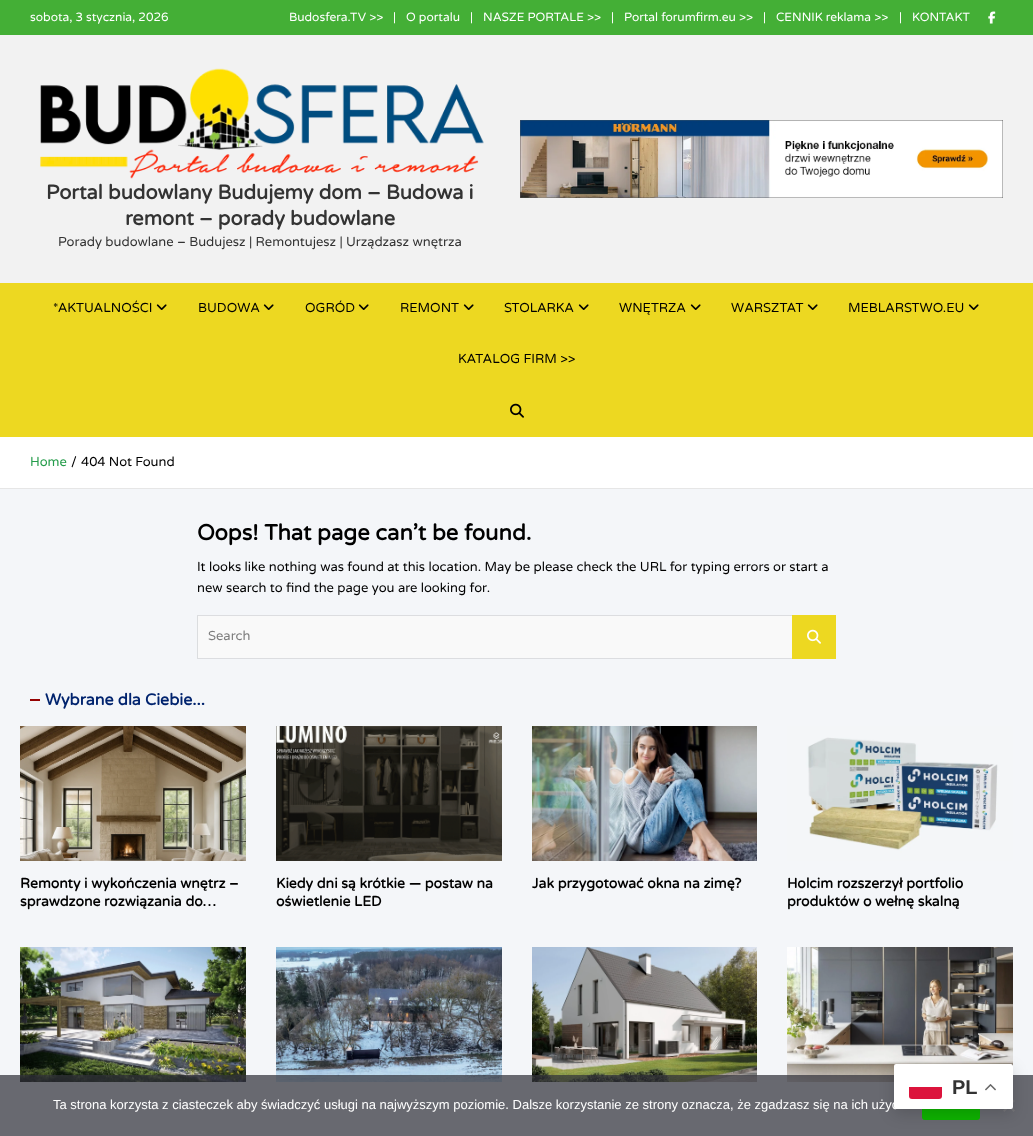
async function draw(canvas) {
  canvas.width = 1033;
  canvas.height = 1136;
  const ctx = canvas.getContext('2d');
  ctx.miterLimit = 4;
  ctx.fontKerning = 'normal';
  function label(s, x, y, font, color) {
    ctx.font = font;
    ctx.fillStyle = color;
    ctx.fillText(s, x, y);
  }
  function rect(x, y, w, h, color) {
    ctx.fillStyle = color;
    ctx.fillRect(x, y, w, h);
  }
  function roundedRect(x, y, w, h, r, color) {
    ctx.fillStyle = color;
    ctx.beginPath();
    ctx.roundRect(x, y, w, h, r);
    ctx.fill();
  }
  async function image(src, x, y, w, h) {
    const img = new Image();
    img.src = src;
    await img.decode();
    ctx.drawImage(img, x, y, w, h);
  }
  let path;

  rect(0, 0, 1033, 1136, '#f4f6f9');
  rect(0, 0, 1033, 35, '#44af36');
  label('sobota, 3 stycznia, 2026', 30, 21, '12px Varela Round', '#fff');
  label('Budosfera.TV >>', 289, 21, '12px Varela Round', '#fff');
  label('|', 393, 21, '12px Varela Round', '#fff');
  label('O portalu', 406, 21, '12px Varela Round', '#fff');
  label('|', 470, 21, '12px Varela Round', '#fff');
  label('NASZE PORTALE >>', 483, 21, '12px Varela Round', '#fff');
  label('|', 611, 21, '12px Varela Round', '#fff');
  label('Portal forumfirm.eu >>', 624, 21, '12px Varela Round', '#fff');
  label('|', 763, 21, '12px Varela Round', '#fff');
  label('CENNIK reklama >>', 776, 21, '12px Varela Round', '#fff');
  label('|', 899, 21, '12px Varela Round', '#fff');
  label('KONTAKT', 912, 21, '12px Varela Round', '#fff');
  await image('assets/img1.png', 988, 11, 8, 13);
  rect(0, 35, 1033, 248, '#f2f2f2');
  await image('assets/img2.png', 520, 120, 483, 78);
  await image('assets/img3.png', 40, 68, 444, 111);
  label('Portal budowlany Budujemy dom – Budowa i', 46, 199, 'bold 20px Varela Round', '#333');
  label('remont – porady budowlane', 125, 225, 'bold 20px Varela Round', '#333');
  label('Porady budowlane – Budujesz | Remontujesz | Urządzasz wnętrza', 58, 246, '13px Varela Round', '#333');
  rect(0, 283, 1033, 154, '#edd821');
  label('*AKTUALNOŚCI', 53, 312, '13px Varela Round', '#000');
  await image('assets/img4.png', 156, 304, 11, 6);
  label('BUDOWA', 198, 312, '13px Varela Round', '#000');
  await image('assets/img4.png', 263, 304, 11, 6);
  label('OGRÓD', 305, 312, '13px Varela Round', '#000');
  await image('assets/img4.png', 358, 304, 11, 6);
  label('REMONT', 400, 312, '13px Varela Round', '#000');
  await image('assets/img4.png', 463, 304, 11, 6);
  label('STOLARKA', 504, 312, '13px Varela Round', '#000');
  await image('assets/img4.png', 578, 304, 11, 6);
  label('WNĘTRZA', 619, 312, '13px Varela Round', '#000');
  await image('assets/img4.png', 690, 304, 11, 6);
  label('WARSZTAT', 731, 312, '13px Varela Round', '#000');
  await image('assets/img4.png', 807, 304, 11, 6);
  label('MEBLARSTWO.EU', 848, 312, '13px Varela Round', '#000');
  await image('assets/img4.png', 968, 304, 11, 6);
  label('KATALOG FIRM >>', 458, 363, '13px Varela Round', '#000');
  await image('assets/img5.png', 510, 403, 14, 15);
  rect(0, 437, 1033, 51, '#fff');
  rect(0, 488, 1033, 1, '#e6e6e6');
  label('Home', 30, 466, '13px Varela Round', '#249c4a');
  label('/', 71, 466, '13px Varela Round', '#000');
  label('404 Not Found', 81, 466, '13px Varela Round', '#000');
  label('Oops! That page can’t be found.', 197, 540, 'bold 22px Varela Round', '#000');
  label('It looks like nothing was found at this location. May be please check the URL for typing errors or start a', 197, 571, '13px Varela Round', '#000');
  label('new search to find the page you are looking for.', 197, 592, '13px Varela Round', '#000');
  rect(198, 616, 594, 42, '#f9f9f9');
  ctx.fillStyle = '#dcdde0';
  path = new Path2D('M197 615H792V616H198Z');
  ctx.fill(path);
  path = new Path2D('M792 659H197L198 658H792Z');
  ctx.fill(path);
  ctx.fillStyle = '#0000001a';
  path = new Path2D('M197 659V615L198 616V658Z');
  ctx.fill(path);
  label('Search', 208, 640, '13px Varela Round', '#7d7d7d');
  rect(792, 615, 44, 44, '#edd821');
  await image('assets/img6.png', 807, 629, 14, 15);
  rect(30, 699, 10, 2, '#950202');
  label('Wybrane dla Ciebie...', 45, 705, 'bold 16px Varela Round', '#00236e');
  await image('assets/img7.png', 20, 726, 226, 135);
  label('Remonty i wykończenia wnętrz –', 20, 888, 'bold 14px Varela Round', '#000');
  label('sprawdzone rozwiązania do…', 20, 906, 'bold 14px Varela Round', '#000');
  await image('assets/img8.png', 276, 726, 226, 135);
  label('Kiedy dni są krótkie — postaw na', 276, 888, 'bold 14px Varela Round', '#000');
  label('oświetlenie LED', 276, 906, 'bold 14px Varela Round', '#000');
  await image('assets/img9.png', 532, 726, 225, 135);
  label('Jak przygotować okna na zimę?', 532, 888, 'bold 14px Varela Round', '#000');
  await image('assets/img10.png', 787, 726, 226, 135);
  label('Holcim rozszerzył portfolio', 787, 888, 'bold 14px Varela Round', '#000');
  label('produktów o wełnę skalną', 787, 906, 'bold 14px Varela Round', '#000');
  await image('assets/img11.png', 20, 947, 226, 135);
  await image('assets/img12.png', 276, 947, 226, 135);
  await image('assets/img13.png', 532, 947, 225, 135);
  await image('assets/img14.png', 787, 947, 226, 135);
  rect(0, 1075, 1033, 61, '#32323ab8');
  roundedRect(922, 1090, 58, 30, 3, '#0eb200');
  ctx.fillStyle = '#747478';
  path = new Path2D('M1013.5 1099.5L1015 1101L1004.5 1112L1003 1110.5Z');
  ctx.fill(path);
  path = new Path2D('M1003 1101L1004.5 1099.5L1015 1110.5L1013.5 1112Z');
  ctx.fill(path);
  ctx.fillStyle = '#00000026';
  ctx.filter = 'blur(7.5px)';
  ctx.beginPath();
  ctx.roundRect(894, 1069, 119, 45, 2);
  ctx.fill();
  ctx.filter = 'none';
  roundedRect(894, 1064, 119, 45, 2, '#fff');
  ctx.fillStyle = '#dc143c';
  ctx.beginPath();
  ctx.roundRect(909, 1087, 33, 12, [0, 0, 3, 3]);
  ctx.fill();
  label('PL', 952, 1094, 'bold 20px Liberation Sans', '#333');
  await image('assets/img15.png', 985, 1084, 11, 7);
  label('Ta strona korzysta z ciasteczek aby świadczyć usługi na najwyższym poziomie. Dalsze korzystanie ze strony oznacza, że zgadzasz się na ich użyc', 53, 1109, '13px Liberation Sans', '#fff');
}

draw(document.querySelector('canvas'));
